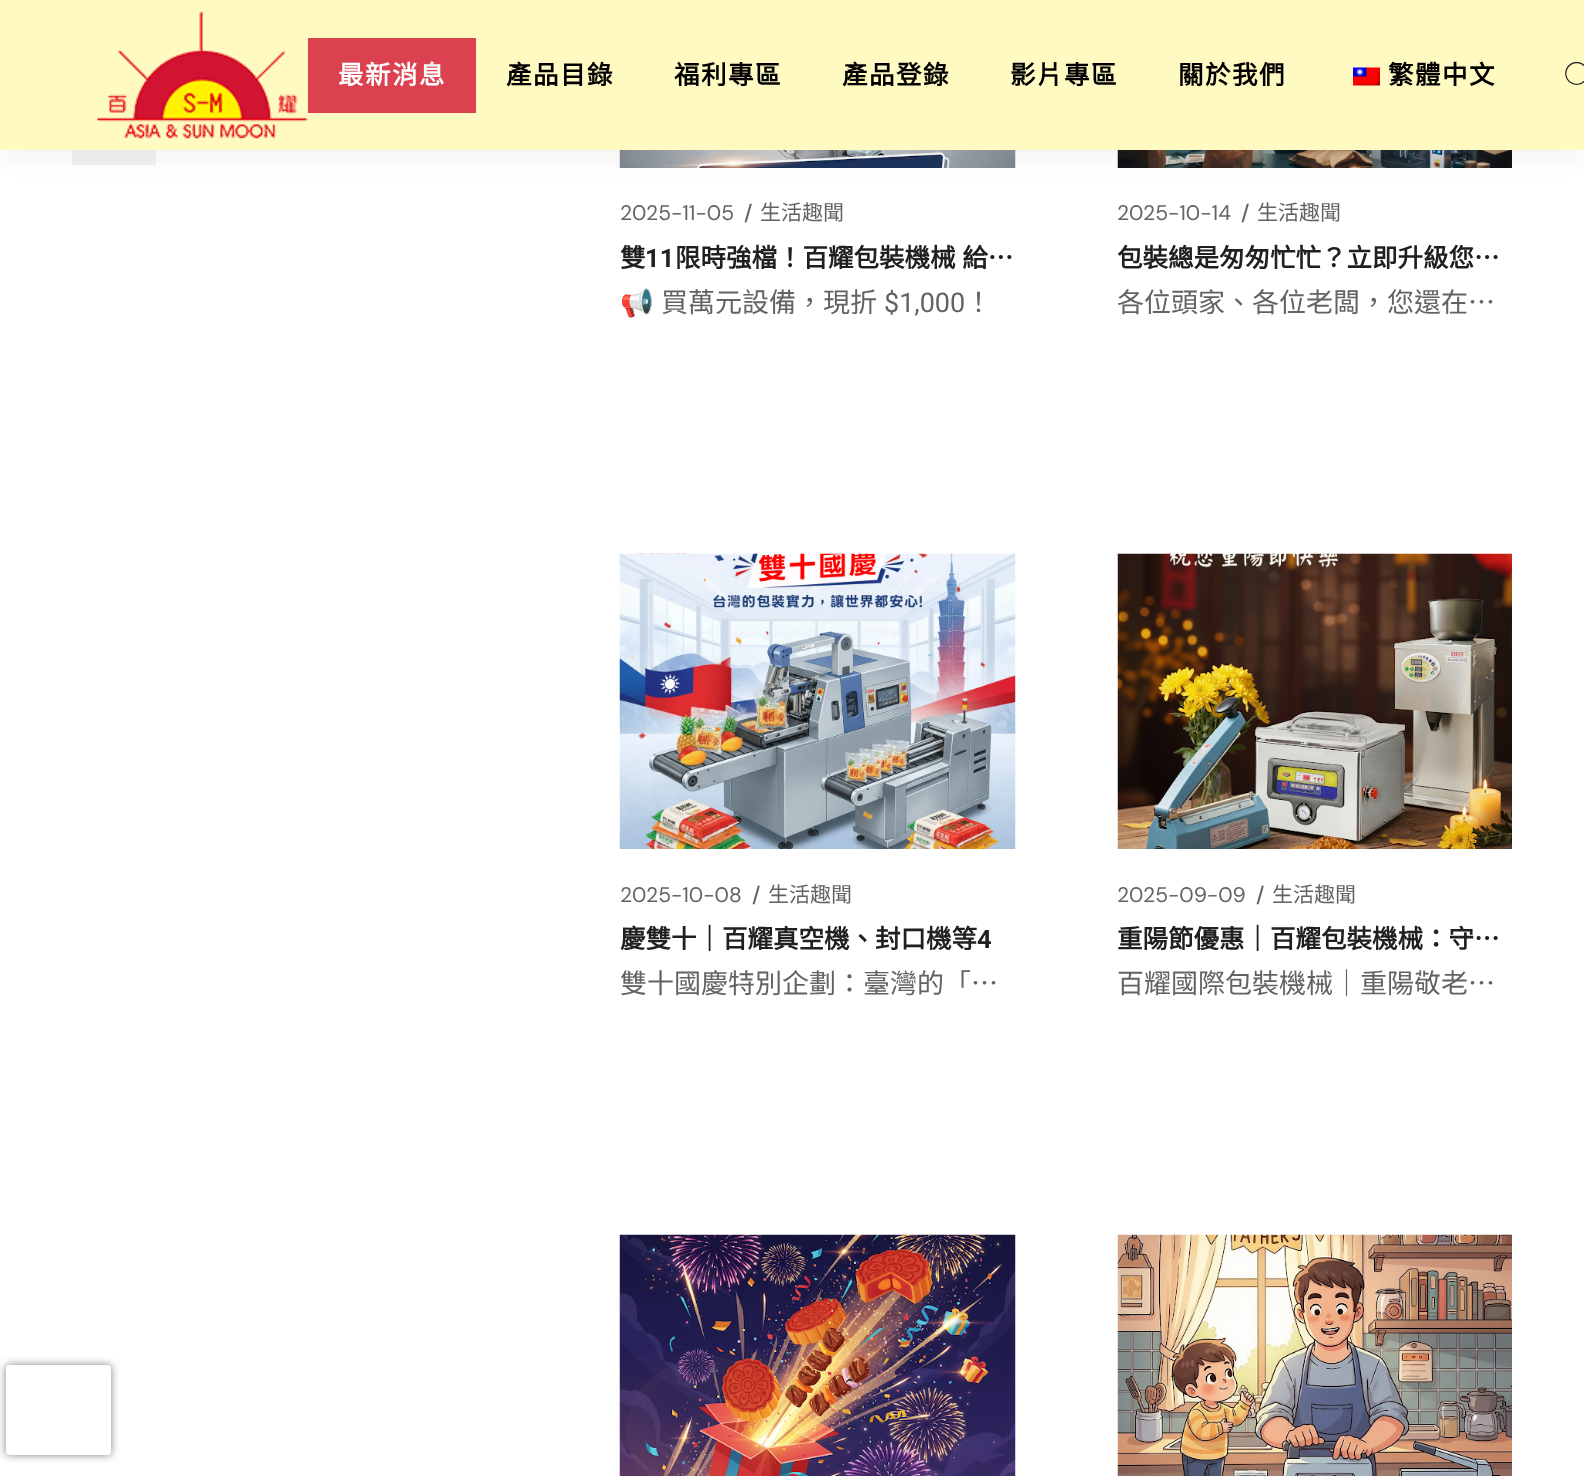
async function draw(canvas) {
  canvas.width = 1584;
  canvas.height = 1476;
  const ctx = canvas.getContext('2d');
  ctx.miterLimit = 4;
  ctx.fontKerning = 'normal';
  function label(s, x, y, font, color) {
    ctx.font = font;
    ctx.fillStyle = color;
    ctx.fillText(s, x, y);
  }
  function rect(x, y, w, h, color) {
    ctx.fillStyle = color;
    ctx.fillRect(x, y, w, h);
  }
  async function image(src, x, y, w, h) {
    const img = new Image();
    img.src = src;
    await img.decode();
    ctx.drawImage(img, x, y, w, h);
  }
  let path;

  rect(0, 0, 1584, 1476, '#fff');
  rect(72, 150, 84, 15, '#f2f2f2');
  await image('assets/img4.png', 619, 150, 397, 18);
  await image('assets/img5.png', 1117, 150, 395, 18);
  ctx.fillStyle = '#110c2e0d';
  ctx.filter = 'blur(11px)';
  ctx.beginPath();
  ctx.rect(0, 9, 1584, 150);
  ctx.fill();
  ctx.filter = 'none';
  rect(0, 0, 1584, 150, '#fffac2');
  await image('assets/img1.png', 97, 11, 211, 128);
  rect(308, 38, 168, 75, '#db414f');
  ctx.letterSpacing = '1.5px';
  label('最新消息', 338, 84, 'bold 25.5px Noto Sans CJK TC', '#fff');
  label('產品目錄', 506, 84, 'bold 25.5px Noto Sans CJK TC', '#000');
  label('福利專區', 674, 84, 'bold 25.5px Noto Sans CJK TC', '#000');
  label('產品登錄', 842, 84, 'bold 25.5px Noto Sans CJK TC', '#000');
  label('影片專區', 1010, 84, 'bold 25.5px Noto Sans CJK TC', '#000');
  label('關於我們', 1178, 84, 'bold 25.5px Noto Sans CJK TC', '#000');
  await image('assets/img2.png', 1353, 67, 27, 19);
  label('繁體中文', 1388, 84, 'bold 25.5px Noto Sans CJK TC', '#000');
  await image('assets/img3.png', 1565, 62, 19, 23);
  ctx.letterSpacing = '0px';
  label('2025-11-05', 620, 220, '21px DM Sans', '#636363');
  label('/', 744, 220, '500 21px DM Sans', '#636363');
  label('生活趣聞', 760, 220, '21px Noto Sans CJK TC', '#636363');
  label('雙', 620, 267, 'bold 25.5px Noto Sans CJK TC', '#202020');
  label('11', 645, 267, 'bold 25.5px Roboto', '#202020');
  ctx.wordSpacing = '1px';
  label('限時強檔！百耀包裝機械 給…', 675, 267, 'bold 25.5px Noto Sans CJK TC', '#202020');
  ctx.wordSpacing = '0px';
  label('📢', 620, 312, '27px Noto Color Emoji', '#636363');
  label('買萬元設備，現折', 661, 312, '27px Noto Sans CJK TC', '#636363');
  label('$1,000', 884, 312, '27px Roboto', '#636363');
  label('！', 965, 312, '27px Noto Sans CJK TC', '#636363');
  label('2025-10-14', 1117, 220, '21px DM Sans', '#636363');
  label('/', 1241, 220, '500 21px DM Sans', '#636363');
  label('生活趣聞', 1257, 220, '21px Noto Sans CJK TC', '#636363');
  label('包裝總是匆匆忙忙？立即升級您…', 1117, 267, 'bold 25.5px Noto Sans CJK TC', '#202020');
  label('各位頭家、各位老闆，您還在…', 1117, 312, '27px Noto Sans CJK TC', '#636363');
  await image('assets/img6.png', 619, 553, 397, 296);
  label('2025-10-08', 620, 902, '21px DM Sans', '#636363');
  label('/', 752, 902, '500 21px DM Sans', '#636363');
  label('生活趣聞', 768, 902, '21px Noto Sans CJK TC', '#636363');
  label('慶雙十｜百耀真空機、封口機等', 620, 948, 'bold 25.5px Noto Sans CJK TC', '#202020');
  label('4', 977, 948, 'bold 25.5px Roboto', '#202020');
  label('雙十國慶特別企劃：臺灣的「…', 620, 993, '27px Noto Sans CJK TC', '#636363');
  await image('assets/img7.png', 1117, 553, 395, 296);
  label('2025-09-09', 1117, 902, '21px DM Sans', '#636363');
  label('/', 1256, 902, '500 21px DM Sans', '#636363');
  label('生活趣聞', 1272, 902, '21px Noto Sans CJK TC', '#636363');
  label('重陽節優惠｜百耀包裝機械：守…', 1117, 948, 'bold 25.5px Noto Sans CJK TC', '#202020');
  label('百耀國際包裝機械｜重陽敬老…', 1117, 993, '27px Noto Sans CJK TC', '#636363');
  await image('assets/img8.png', 619, 1234, 397, 242);
  await image('assets/img9.png', 1117, 1234, 395, 242);
  ctx.save();
  path = new Path2D('M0 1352H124V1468H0ZM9 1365H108C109.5 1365 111 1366.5 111 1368V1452C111 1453.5 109.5 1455 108 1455H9C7.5 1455 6 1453.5 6 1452V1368C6 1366.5 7.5 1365 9 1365Z');
  ctx.clip(path, 'evenodd');
  ctx.fillStyle = '#808080';
  ctx.filter = 'blur(4px)';
  ctx.beginPath();
  ctx.roundRect(6, 1365, 105, 90, 3);
  ctx.fill();
  ctx.filter = 'none';
  ctx.restore();
}

draw(document.querySelector('canvas'));
